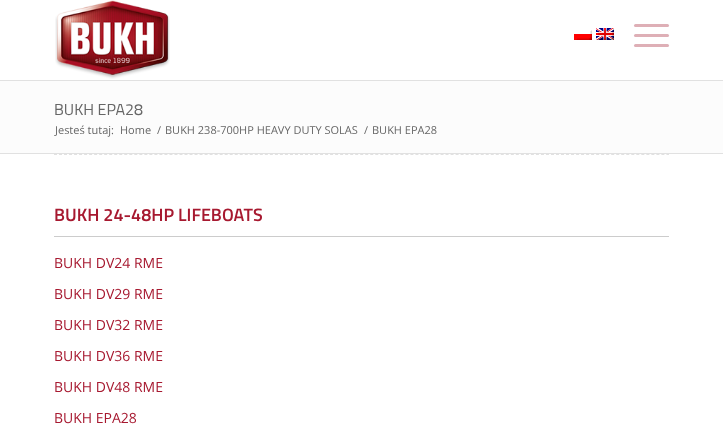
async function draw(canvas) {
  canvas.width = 723;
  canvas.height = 439;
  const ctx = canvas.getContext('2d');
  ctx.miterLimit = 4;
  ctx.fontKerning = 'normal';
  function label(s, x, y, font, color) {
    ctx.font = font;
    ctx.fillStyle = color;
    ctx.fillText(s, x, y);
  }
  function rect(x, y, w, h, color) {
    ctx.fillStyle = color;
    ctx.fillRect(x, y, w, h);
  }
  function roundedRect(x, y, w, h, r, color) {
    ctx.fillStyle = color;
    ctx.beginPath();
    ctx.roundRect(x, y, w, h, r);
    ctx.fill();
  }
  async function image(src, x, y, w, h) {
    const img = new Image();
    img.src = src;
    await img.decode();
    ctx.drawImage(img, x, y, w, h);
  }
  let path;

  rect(0, 0, 723, 439, '#fff');
  rect(0, 80, 723, 1, '#e1e1e1');
  await image('assets/img1.png', 55, 0, 115, 79);
  await image('assets/img2.png', 574, 30, 18, 10);
  await image('assets/img3.png', 596, 28, 18, 12);
  roundedRect(634, 34, 35, 3, 1.5, '#deafb6');
  roundedRect(634, 24, 35, 3, 1.5, '#deafb6');
  roundedRect(634, 44, 35, 3, 1.5, '#deafb6');
  rect(0, 81, 723, 72, '#fcfcfc');
  label('BUKH EPA28', 54, 115, '16px Titillium Web', '#666');
  label('Jesteś tutaj:', 55, 134, '11px Open Sans', '#666');
  label('Home', 120, 134, '11px Open Sans', '#666');
  label('/', 157, 134, '11px Open Sans', '#666');
  label('BUKH 238-700HP HEAVY DUTY SOLAS', 165, 134, '11px Open Sans', '#666');
  label('/', 364, 134, '11px Open Sans', '#666');
  label('BUKH EPA28', 372, 134, '11px Open Sans', '#666');
  rect(0, 153, 723, 1, '#e1e1e1');
  path = new Path2D('M54 154.5H669');
  ctx.strokeStyle = '#e1e1e1';
  ctx.setLineDash([3, 2.02]);
  ctx.stroke(path);
  rect(54, 236, 615, 1, '#ccc');
  label('BUKH 24-48HP LIFEBOATS', 54, 221, '600 18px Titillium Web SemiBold', '#a71930');
  label('BUKH DV24 RME', 54, 268, '14px Open Sans', '#a71930');
  label('BUKH DV29 RME', 54, 299, '14px Open Sans', '#a71930');
  label('BUKH DV32 RME', 54, 330, '14px Open Sans', '#a71930');
  label('BUKH DV36 RME', 54, 361, '14px Open Sans', '#a71930');
  label('BUKH DV48 RME', 54, 392, '14px Open Sans', '#a71930');
  label('BUKH EPA28', 54, 423, '14px Open Sans', '#a71930');
}

draw(document.querySelector('canvas'));
